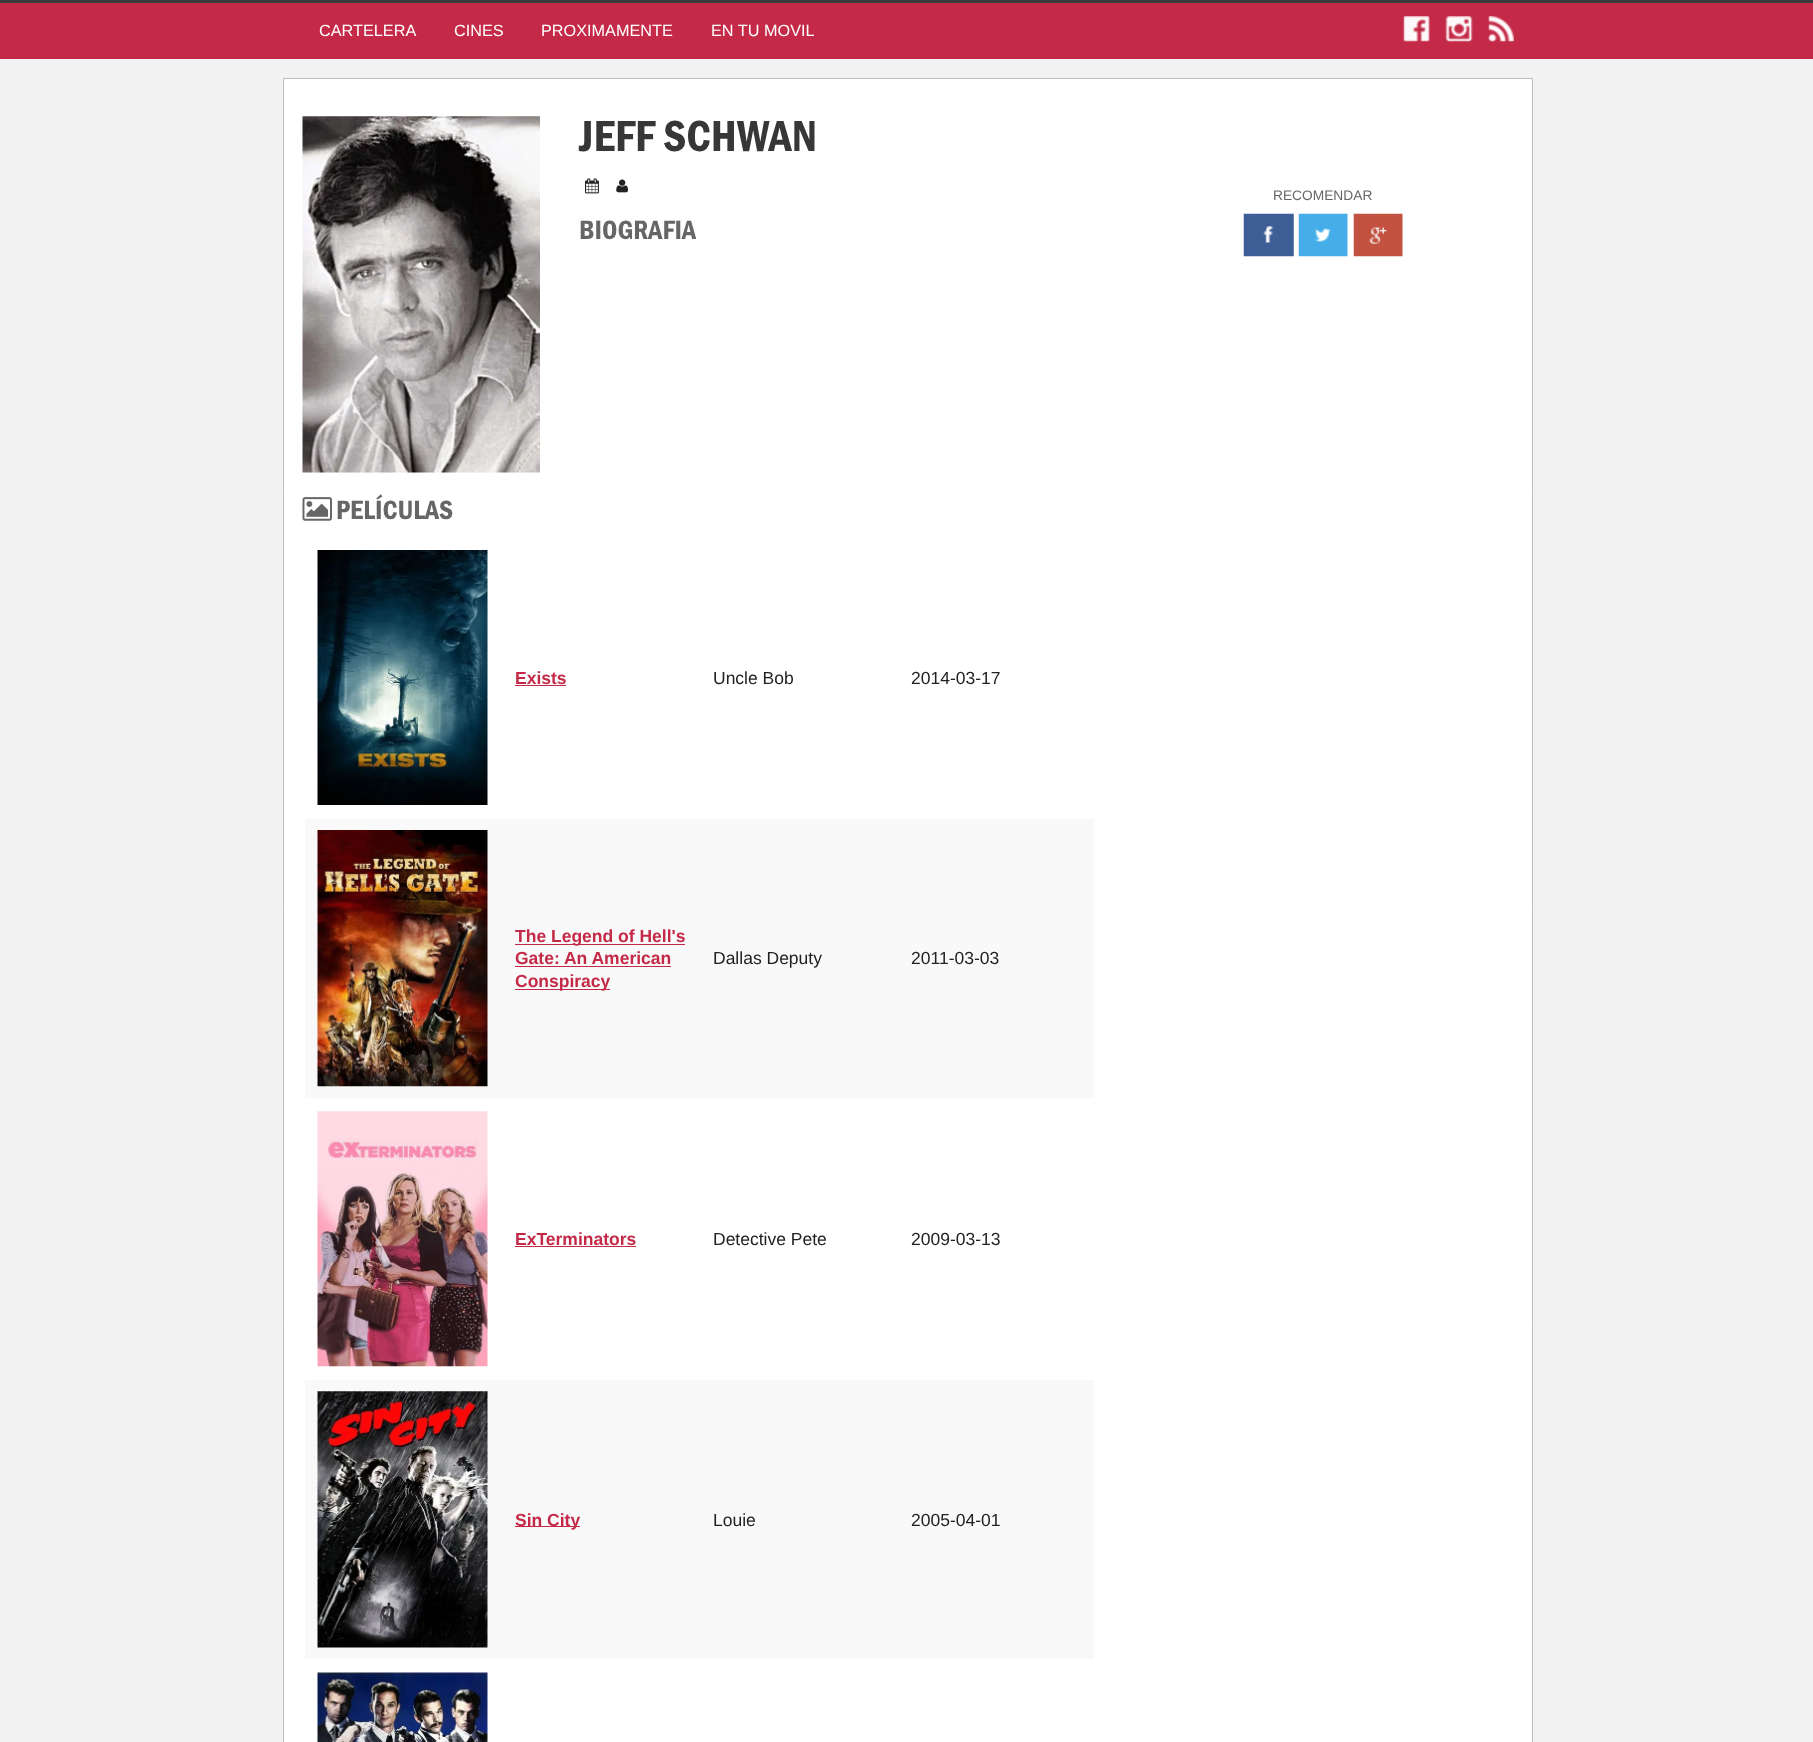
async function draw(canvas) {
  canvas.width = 1813;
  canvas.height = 1742;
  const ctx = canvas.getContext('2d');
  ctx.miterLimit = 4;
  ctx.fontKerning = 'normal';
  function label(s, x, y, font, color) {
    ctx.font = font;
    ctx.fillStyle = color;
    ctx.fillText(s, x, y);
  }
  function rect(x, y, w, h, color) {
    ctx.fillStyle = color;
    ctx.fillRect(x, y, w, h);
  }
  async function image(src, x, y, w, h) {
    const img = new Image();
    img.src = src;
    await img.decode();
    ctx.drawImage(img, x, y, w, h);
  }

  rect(0, 0, 1813, 1742, '#f2f2f3');
  rect(0, 0, 1813, 3, '#3b3a3a');
  rect(0, 3, 1813, 56, '#c42a47');
  label('CARTELERA', 319, 36, '16.25px Liberation Sans', '#fff');
  label('CINES', 454, 36, '16.25px Liberation Sans', '#fff');
  label('PROXIMAMENTE', 541, 36, '16.25px Liberation Sans', '#fff');
  label('EN TU MOVIL', 711, 36, '16.25px Liberation Sans', '#fff');
  await image('assets/img1.png', 1403, 16, 27, 26);
  await image('assets/img2.png', 1445, 16, 28, 26);
  await image('assets/img3.png', 1488, 16, 26, 26);
  ctx.beginPath();
  ctx.rect(283.5, 78.5, 1249, 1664);
  ctx.fill();
  ctx.strokeStyle = '#bdbdbd';
  ctx.stroke();
  await image('assets/img4.png', 302, 116, 238, 357);
  label('JEFF SCHWAN', 579, 151, '45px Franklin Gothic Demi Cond', '#373737');
  await image('assets/img5.png', 585, 178, 14, 16);
  await image('assets/img6.png', 616, 179, 12, 14);
  label('BIOGRAFIA', 579, 239, '27.5px Franklin Gothic Demi Cond', '#666');
  await image('assets/img7.png', 302, 497, 30, 24);
  label('PELÍCULAS', 336, 519, '27.5px Franklin Gothic Demi Cond', '#666');
  await image('assets/img8.png', 317, 550, 171, 255);
  label('Exists', 515, 684, 'bold 17.5px Liberation Sans', '#c42a47');
  rect(515, 685, 51, 1, '#c42a47');
  label('Uncle Bob', 713, 684, '17.5px Liberation Sans', '#222');
  label('2014-03-17', 911, 684, '17.5px Liberation Sans', '#222');
  rect(305, 819, 789, 279, '#f9f9f9');
  await image('assets/img9.png', 317, 830, 171, 257);
  rect(515, 944, 170, 1, '#c42a47');
  label('The Legend of Hell\'s', 515, 942, 'bold 17.5px Liberation Sans', '#c42a47');
  label('Gate: An American', 515, 964, 'bold 17.5px Liberation Sans', '#c42a47');
  rect(515, 966, 156, 1, '#c42a47');
  rect(515, 989, 95, 1, '#c42a47');
  label('Conspiracy', 515, 987, 'bold 17.5px Liberation Sans', '#c42a47');
  label('Dallas Deputy', 713, 964, '17.5px Liberation Sans', '#222');
  label('2011-03-03', 911, 964, '17.5px Liberation Sans', '#222');
  await image('assets/img10.png', 317, 1111, 171, 256);
  label('ExTerminators', 515, 1245, 'bold 17.5px Liberation Sans', '#c42a47');
  rect(515, 1246, 121, 1, '#c42a47');
  label('Detective Pete', 713, 1245, '17.5px Liberation Sans', '#222');
  label('2009-03-13', 911, 1245, '17.5px Liberation Sans', '#222');
  rect(305, 1380, 789, 279, '#f9f9f9');
  await image('assets/img11.png', 317, 1391, 171, 257);
  rect(515, 1526, 65, 1, '#c42a47');
  label('Sin City', 515, 1526, 'bold 17.5px Liberation Sans', '#c42a47');
  label('Louie', 713, 1526, '17.5px Liberation Sans', '#222');
  label('2005-04-01', 911, 1526, '17.5px Liberation Sans', '#222');
  await image('assets/img12.png', 317, 1672, 171, 70);
  label('RECOMENDAR', 1273, 200, '13.75px Liberation Sans', '#666');
  await image('assets/img13.png', 1243, 213, 51, 44);
  await image('assets/img14.png', 1298, 213, 50, 44);
  await image('assets/img15.png', 1353, 213, 50, 44);
}

draw(document.querySelector('canvas'));
